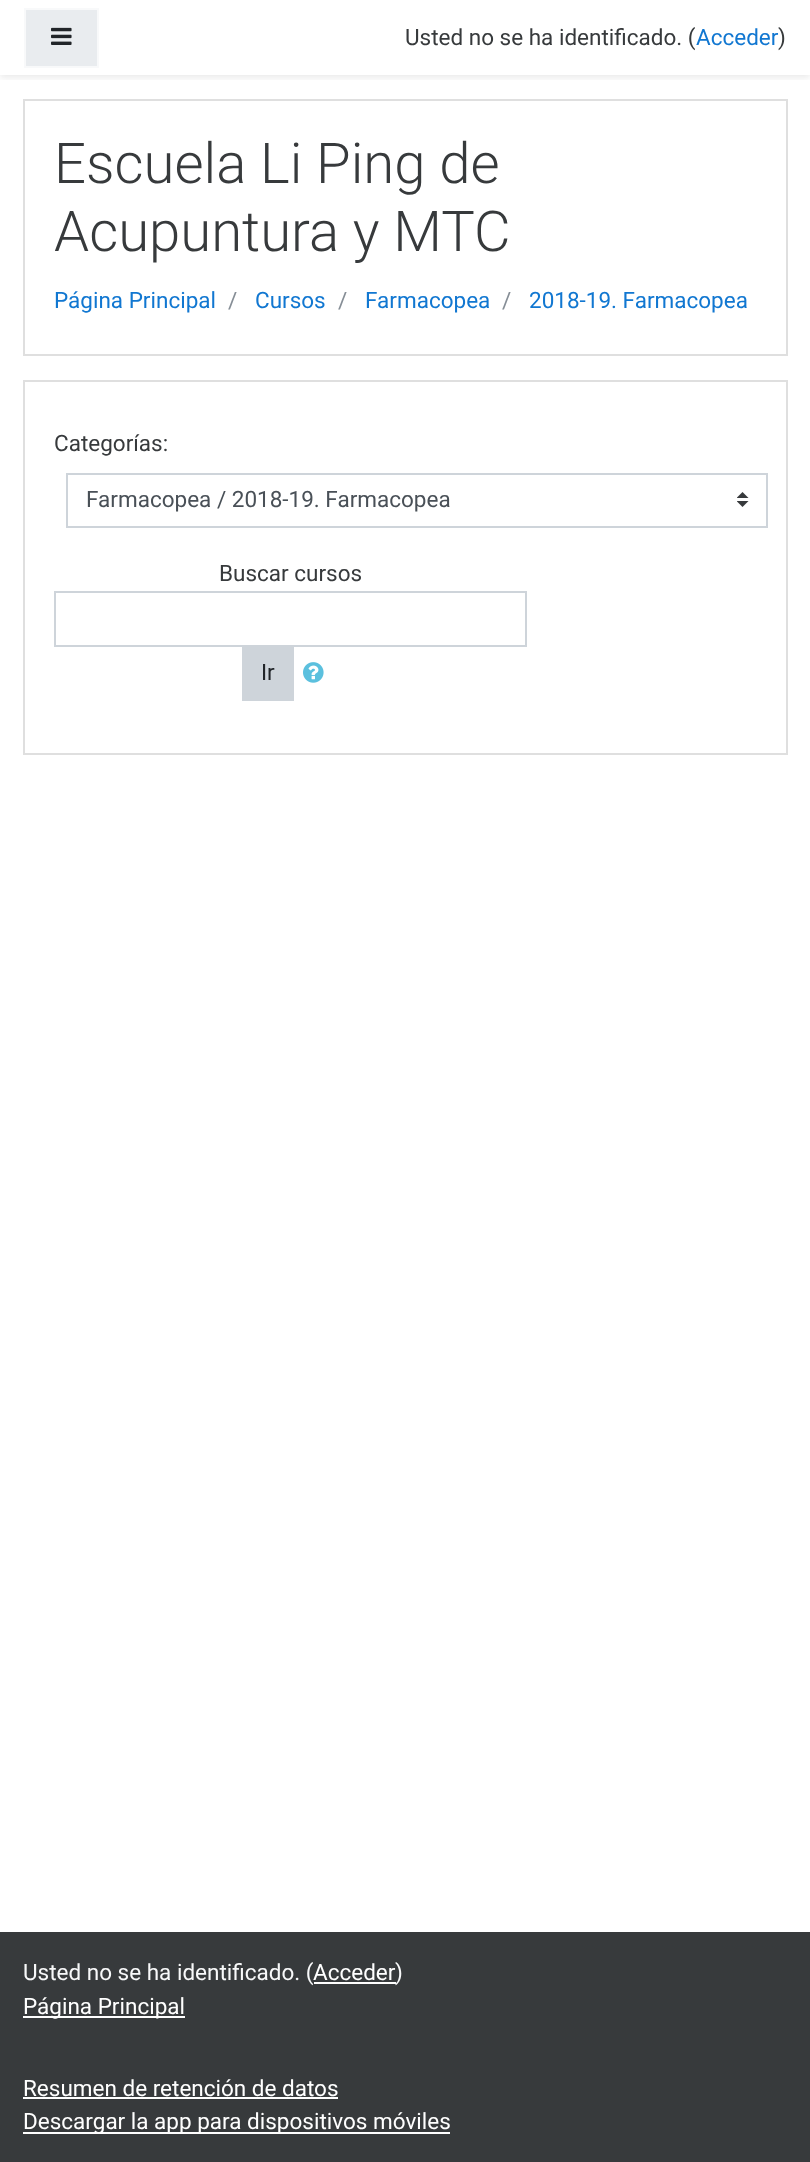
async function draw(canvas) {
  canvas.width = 810;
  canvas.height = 2162;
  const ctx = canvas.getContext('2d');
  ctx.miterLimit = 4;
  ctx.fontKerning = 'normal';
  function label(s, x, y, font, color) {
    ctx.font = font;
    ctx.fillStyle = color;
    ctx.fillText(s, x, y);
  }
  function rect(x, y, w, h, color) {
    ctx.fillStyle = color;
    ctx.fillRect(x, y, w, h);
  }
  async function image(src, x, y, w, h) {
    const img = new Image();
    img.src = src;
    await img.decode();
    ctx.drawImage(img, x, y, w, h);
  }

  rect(0, 0, 810, 2162, '#fff');
  ctx.save();
  ctx.beginPath();
  ctx.rect(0, 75, 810, 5);
  ctx.clip();
  ctx.fillStyle = '#00000014';
  ctx.filter = 'blur(3px)';
  ctx.beginPath();
  ctx.rect(0, 3, 810, 75);
  ctx.fill();
  ctx.filter = 'none';
  ctx.restore();
  ctx.fillStyle = '#e9ecef';
  ctx.beginPath();
  ctx.rect(25, 9, 73, 58);
  ctx.fill();
  ctx.strokeStyle = '#f8f9fa';
  ctx.lineWidth = 2;
  ctx.stroke();
  await image('assets/img1.png', 51, 27, 21, 18);
  label('Usted no se ha identificado. (', 405, 45, '22.5px Roboto', '#373a3c');
  label('Acceder', 696, 45, '22.5px Roboto', '#1177d1');
  label(')', 778, 45, '22.5px Roboto', '#373a3c');
  ctx.strokeStyle = '#dfdfdf';
  ctx.strokeRect(24, 100, 763, 255);
  label('Escuela Li Ping de', 54, 183, '300 56.25px Roboto', '#373a3c');
  label('Acupuntura y MTC', 54, 251, '300 56.25px Roboto', '#373a3c');
  label('Página Principal', 54, 308, '22.5px Roboto', '#1177d1');
  label('/', 228, 308, '22.5px Roboto', '#868e96');
  label('Cursos', 255, 308, '22.5px Roboto', '#1177d1');
  label('/', 338, 308, '22.5px Roboto', '#868e96');
  label('Farmacopea', 365, 308, '22.5px Roboto', '#1177d1');
  label('/', 502, 308, '22.5px Roboto', '#868e96');
  label('2018-19. Farmacopea', 529, 308, '22.5px Roboto', '#1177d1');
  ctx.strokeRect(24, 381, 763, 373);
  label('Categorías:', 54, 451, '22.5px Roboto', '#373a3c');
  await image('assets/img2.png', 737, 492, 12, 15);
  ctx.strokeStyle = '#ced4da';
  ctx.strokeRect(67, 474, 700, 53);
  label('Farmacopea / 2018-19. Farmacopea', 86, 507, '22.5px Roboto', '#495057');
  label('Buscar cursos', 219, 581, '22.5px Roboto', '#373a3c');
  ctx.strokeRect(55, 592, 471, 54);
  rect(242, 647, 52, 54, '#ced4da');
  label('Ir', 261, 680, '22.5px Roboto', '#212529');
  await image('assets/img3.png', 303, 662, 21, 21);
  rect(0, 1932, 810, 230, '#373a3c');
  label('Usted no se ha identificado. (', 23, 1980, '22.5px Roboto', '#f8f9fa');
  label('Acceder', 313, 1980, '22.5px Roboto', '#fff');
  rect(314, 1982, 82, 2, '#fff');
  label(')', 395, 1980, '22.5px Roboto', '#f8f9fa');
  rect(23, 2016, 162, 2, '#fff');
  label('Página Principal', 23, 2014, '22.5px Roboto', '#fff');
  label('Resumen de retención de datos', 23, 2096, '22.5px Roboto', '#fff');
  rect(23, 2097, 315, 2, '#fff');
  rect(23, 2132, 427, 2, '#fff');
  label('Descargar la app para dispositivos móviles', 23, 2129, '22.5px Roboto', '#fff');
}

draw(document.querySelector('canvas'));
